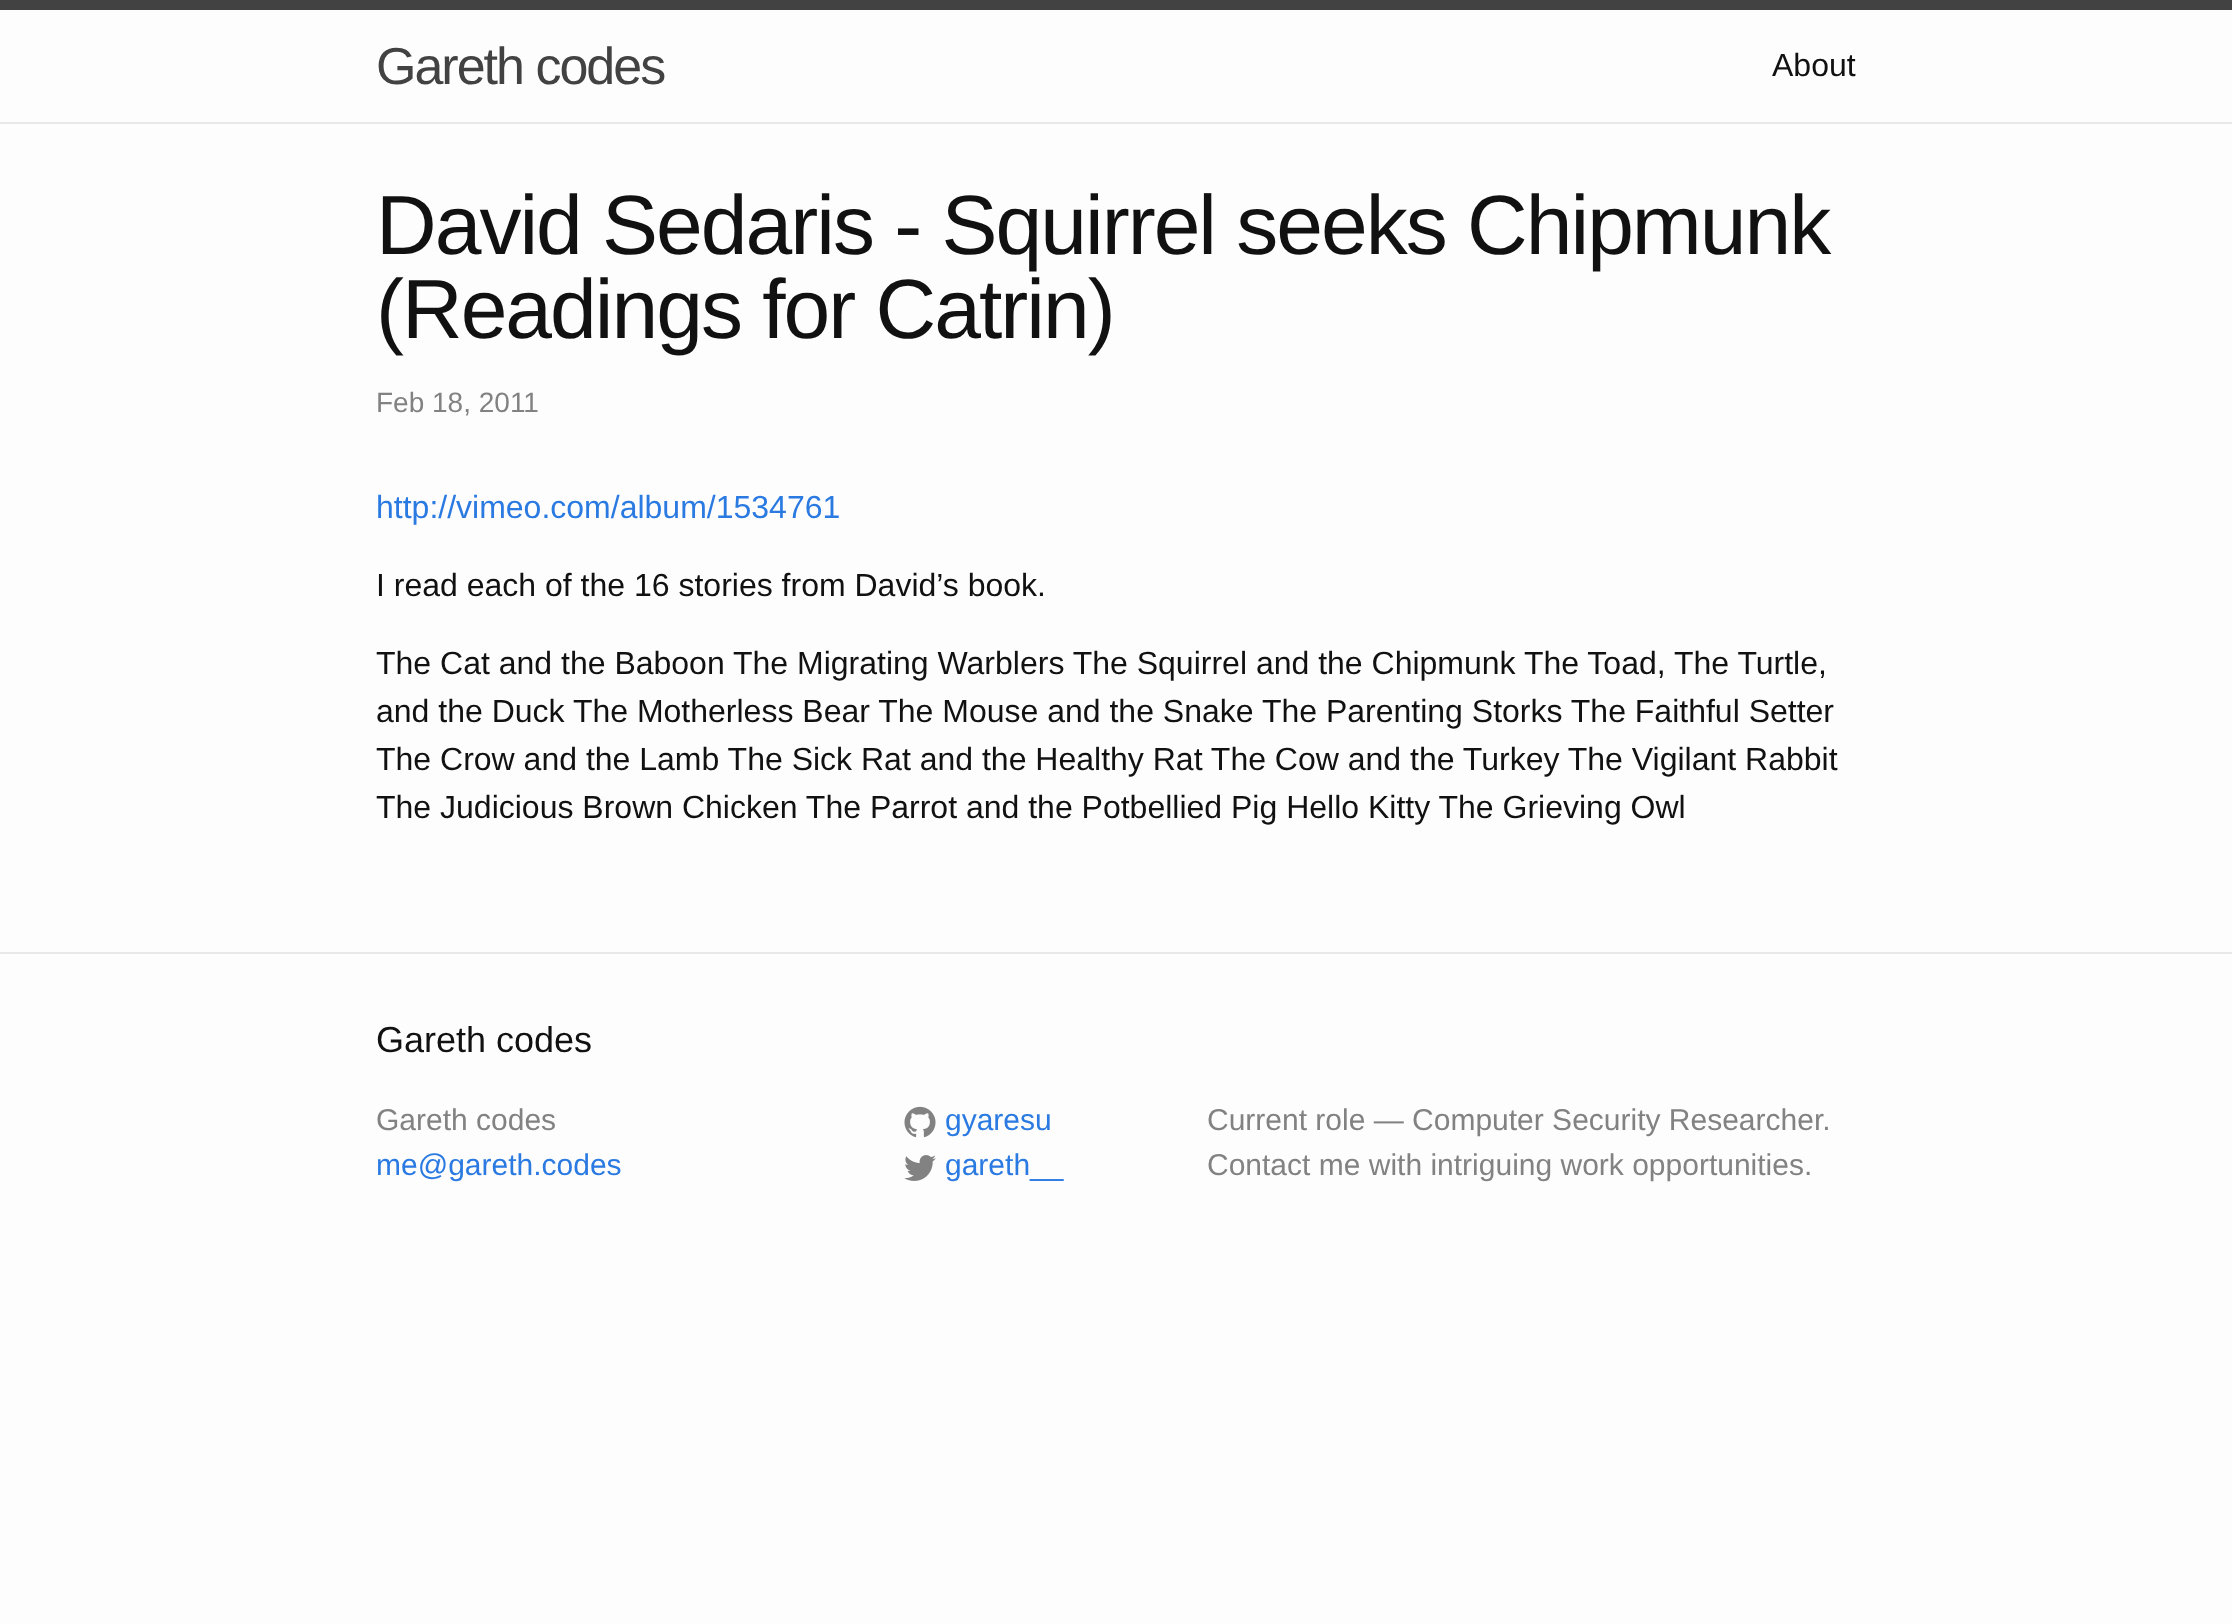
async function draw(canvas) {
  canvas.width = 2232;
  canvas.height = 1624;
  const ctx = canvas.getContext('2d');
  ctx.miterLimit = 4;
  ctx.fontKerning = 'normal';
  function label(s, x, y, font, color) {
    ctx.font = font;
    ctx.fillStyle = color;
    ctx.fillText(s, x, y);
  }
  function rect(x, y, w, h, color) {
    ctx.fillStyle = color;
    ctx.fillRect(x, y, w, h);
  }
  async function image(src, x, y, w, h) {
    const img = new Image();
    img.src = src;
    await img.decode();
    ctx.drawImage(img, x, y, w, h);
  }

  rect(0, 0, 2232, 1624, '#fdfdfd');
  rect(0, 0, 2232, 10, '#424242');
  rect(0, 122, 2232, 2, '#e8e8e8');
  ctx.letterSpacing = '-2px';
  label('Gareth codes', 376, 84, '52px Liberation Sans', '#424242');
  ctx.letterSpacing = '0px';
  label('About', 1772, 76, '32px Liberation Sans', '#111');
  ctx.letterSpacing = '-2px';
  label('David Sedaris - Squirrel seeks Chipmunk', 376, 254, '84px Liberation Sans', '#111');
  label('(Readings for Catrin)', 376, 338, '84px Liberation Sans', '#111');
  ctx.letterSpacing = '0px';
  label('Feb 18, 2011', 376, 412, '28px Liberation Sans', '#828282');
  label('http://vimeo.com/album/1534761', 376, 518, '32px Liberation Sans', '#2a7ae2');
  label('I read each of the 16 stories from David’s book.', 376, 596, '32px Liberation Sans', '#111');
  label('The Cat and the Baboon The Migrating Warblers The Squirrel and the Chipmunk The Toad, The Turtle,', 376, 674, '32px Liberation Sans', '#111');
  label('and the Duck The Motherless Bear The Mouse and the Snake The Parenting Storks The Faithful Setter', 376, 722, '32px Liberation Sans', '#111');
  label('The Crow and the Lamb The Sick Rat and the Healthy Rat The Cow and the Turkey The Vigilant Rabbit', 376, 770, '32px Liberation Sans', '#111');
  label('The Judicious Brown Chicken The Parrot and the Potbellied Pig Hello Kitty The Grieving Owl', 376, 818, '32px Liberation Sans', '#111');
  rect(0, 952, 2232, 2, '#e8e8e8');
  label('Gareth codes', 376, 1052, '36px Liberation Sans', '#111');
  label('Gareth codes', 376, 1130, '30px Liberation Sans', '#828282');
  label('me@gareth.codes', 376, 1175, '30px Liberation Sans', '#2a7ae2');
  await image('assets/img1.png', 904, 1106, 32, 32);
  label('gyaresu', 945, 1130, '30px Liberation Sans', '#2a7ae2');
  await image('assets/img2.png', 904, 1155, 32, 26);
  label('gareth__', 945, 1175, '30px Liberation Sans', '#2a7ae2');
  label('Current role — Computer Security Researcher.', 1207, 1130, '30px Liberation Sans', '#828282');
  label('Contact me with intriguing work opportunities.', 1207, 1175, '30px Liberation Sans', '#828282');
}

draw(document.querySelector('canvas'));
